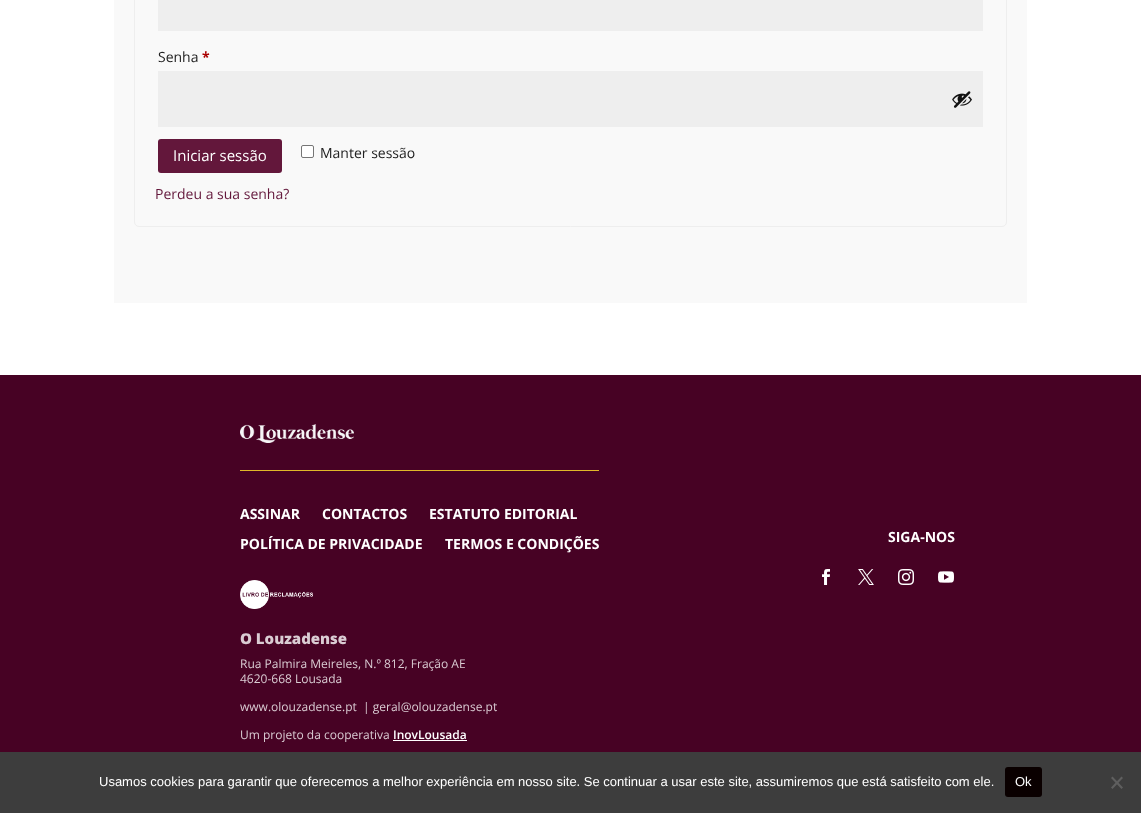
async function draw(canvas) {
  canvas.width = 1141;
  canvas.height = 813;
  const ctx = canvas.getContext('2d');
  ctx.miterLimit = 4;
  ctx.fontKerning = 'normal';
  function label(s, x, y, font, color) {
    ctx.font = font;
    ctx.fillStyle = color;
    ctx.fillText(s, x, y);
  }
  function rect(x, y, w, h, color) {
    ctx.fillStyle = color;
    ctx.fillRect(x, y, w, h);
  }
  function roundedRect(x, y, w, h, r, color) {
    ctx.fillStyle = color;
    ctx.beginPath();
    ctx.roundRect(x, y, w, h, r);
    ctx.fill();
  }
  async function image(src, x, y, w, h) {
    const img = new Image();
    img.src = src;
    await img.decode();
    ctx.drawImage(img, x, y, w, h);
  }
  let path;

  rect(0, 0, 1141, 813, '#fff');
  rect(114, 0, 913, 303, '#f9f9f9');
  ctx.beginPath();
  ctx.roundRect(134.5, -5.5, 872, 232, 4.5);
  ctx.strokeStyle = '#eee';
  ctx.stroke();
  rect(158, 0, 825, 31, '#eee');
  label('Senha', 158, 62, '14px Open Sans', '#212121');
  label('*', 202, 62, 'bold 14px Open Sans', '#a00');
  rect(158, 71, 825, 56, '#eee');
  await image('assets/img1.png', 952, 91, 20, 17);
  roundedRect(158, 139, 124, 34, 3, '#63173b');
  label('Iniciar sessão', 173, 161, '15px Open Sans', '#fff');
  ctx.beginPath();
  ctx.roundRect(301.5, 145.5, 12, 12, 1.5);
  ctx.fill();
  ctx.strokeStyle = '#767676';
  ctx.stroke();
  label('Manter sessão', 320, 158, '14px Open Sans', '#212121');
  label('Perdeu a sua senha?', 155, 199, '14px Open Sans', '#63173b');
  rect(0, 375, 1141, 377, '#470224');
  await image('assets/img2.png', 240, 424, 114, 19);
  rect(240, 470, 359, 1, '#e0b829');
  label('ASSINAR', 240, 519, 'bold 14px Open Sans', '#fff');
  label('CONTACTOS', 322, 519, 'bold 14px Open Sans', '#fff');
  label('ESTATUTO EDITORIAL', 429, 519, 'bold 14px Open Sans', '#fff');
  label('POLÍTICA DE PRIVACIDADE', 240, 549, 'bold 14px Open Sans', '#fff');
  label('TERMOS E CONDIÇÕES', 445, 549, 'bold 14px Open Sans', '#fff');
  await image('assets/img3.png', 240, 580, 73, 29);
  label('O Louzadense', 240, 644, '800 15px Open Sans', '#daccd3');
  label('Rua Palmira Meireles, N.º 812, Fração AE', 240, 668, '12px Open Sans', '#daccd3');
  label('4620-668 Lousada', 240, 683, '12px Open Sans', '#daccd3');
  label('www.olouzadense.pt  | geral@olouzadense.pt', 240, 711, '12px Open Sans', '#daccd3');
  label('Um projeto da cooperativa', 240, 739, '12px Open Sans', '#daccd3');
  label('InovLousada', 393, 739, '600 12px Open Sans', '#fff');
  rect(393, 740, 74, 1, '#fff');
  label('SIGA-NOS', 888, 542, 'bold 14px Open Sans', '#fff');
  await image('assets/img4.png', 822, 569, 8, 16);
  await image('assets/img5.png', 858, 569, 16, 16);
  await image('assets/img6.png', 898, 569, 16, 16);
  await image('assets/img7.png', 938, 571, 16, 12);
  rect(0, 752, 1141, 61, '#3d3d3d');
  label('Usamos cookies para garantir que oferecemos a melhor experiência em nosso site. Se continuar a usar este site, assumiremos que está satisfeito com ele.', 99, 786, '13px Liberation Sans', '#fff');
  roundedRect(1005, 767, 37, 30, 3, '#0a0000');
  label('Ok', 1015, 786, '13px Liberation Sans', '#fff');
  ctx.fillStyle = '#5f5f5f';
  path = new Path2D('M1121.5 776.5L1123 778L1112.5 789L1111 787.5Z');
  ctx.fill(path);
  path = new Path2D('M1111 778L1112.5 776.5L1123 787.5L1121.5 789Z');
  ctx.fill(path);
}

draw(document.querySelector('canvas'));
